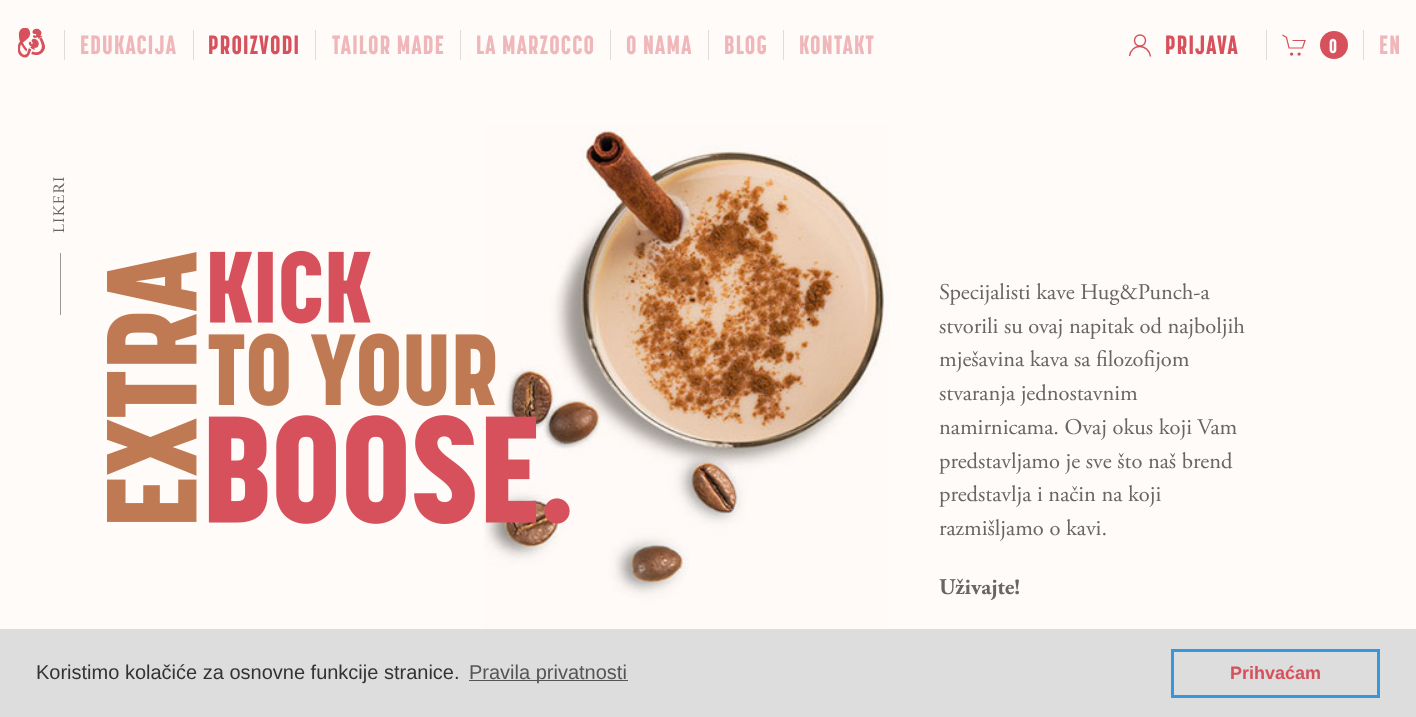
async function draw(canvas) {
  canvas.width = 1416;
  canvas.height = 717;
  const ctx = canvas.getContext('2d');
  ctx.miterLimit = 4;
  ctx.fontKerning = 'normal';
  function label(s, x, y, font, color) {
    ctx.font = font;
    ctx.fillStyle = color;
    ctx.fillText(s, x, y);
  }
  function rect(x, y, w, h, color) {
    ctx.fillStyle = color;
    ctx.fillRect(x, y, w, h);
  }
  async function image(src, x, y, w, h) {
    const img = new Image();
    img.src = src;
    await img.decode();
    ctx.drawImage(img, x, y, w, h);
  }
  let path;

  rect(0, 0, 1416, 717, '#fffbf8');
  await image('assets/img1.png', 18, 28, 27, 30);
  rect(64, 30, 1, 30, '#ddd');
  ctx.letterSpacing = '1.25px';
  label('EDUKACIJA', 80, 54, '900 26.25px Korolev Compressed', '#efb7ba');
  rect(193, 30, 1, 30, '#ddd');
  label('PROIZVODI', 208, 54, '900 26.25px Korolev Compressed', '#d6515c');
  rect(315, 30, 1, 30, '#ddd');
  label('TAILOR MADE', 332, 54, '900 26.25px Korolev Compressed', '#efb7ba');
  rect(460, 30, 1, 30, '#ddd');
  label('LA MARZOCCO', 476, 54, '900 26.25px Korolev Compressed', '#efb7ba');
  rect(610, 30, 1, 30, '#ddd');
  label('O NAMA', 626, 54, '900 26.25px Korolev Compressed', '#efb7ba');
  rect(708, 30, 1, 30, '#ddd');
  label('BLOG', 724, 54, '900 26.25px Korolev Compressed', '#efb7ba');
  rect(783, 30, 1, 30, '#ddd');
  label('KONTAKT', 799, 54, '900 26.25px Korolev Compressed', '#efb7ba');
  ctx.beginPath();
  ctx.arc(1140, 40.5, 5.5, 0, 2 * Math.PI);
  ctx.strokeStyle = '#d6515c';
  ctx.lineWidth = 1.4;
  ctx.stroke();
  path = new Path2D('M1129.5 56C1131.5 43 1148.5 43.5 1150.5 56.5');
  ctx.stroke(path);
  label('PRIJAVA', 1165, 54, '900 26.25px Korolev Compressed', '#d6515c');
  rect(1266, 30, 1, 30, '#ddd');
  path = new Path2D('M1282.5 35L1286.5 37.5L1289 48H1302.5L1305 40.5H1292.5');
  ctx.lineWidth = 1.2;
  ctx.stroke(path);
  ctx.fillStyle = '#d6515c';
  ctx.beginPath();
  ctx.arc(1291.6, 54.1, 1.7, 0, 2 * Math.PI);
  ctx.fill();
  ctx.beginPath();
  ctx.arc(1299.1, 54.1, 1.7, 0, 2 * Math.PI);
  ctx.fill();
  ctx.beginPath();
  ctx.arc(1334, 45, 14, 0, 2 * Math.PI);
  ctx.fill();
  label('0', 1329, 53, '900 20px Korolev Compressed', '#fff');
  rect(1363, 30, 1, 30, '#ddd');
  label('EN', 1379, 54, '900 26.25px Korolev Compressed', '#efb7ba');
  await image('assets/img2.png', 484, 125, 405, 504);
  ctx.font = '16px Adobe Garamond';
  ctx.fillStyle = '#666';
  ctx.save();
  ctx.translate(64, 233);
  ctx.rotate(-90 * Math.PI / 180);
  ctx.fillText('LIKERI', 0, 0);
  ctx.restore();
  rect(60, 253, 1, 62, '#999');
  await image('assets/img3.png', 107, 250, 463, 274);
  ctx.letterSpacing = '0px';
  label('Specijalisti kave Hug&Punch-a', 939, 299, '22.5px Adobe Garamond', '#666');
  label('stvorili su ovaj napitak od najboljih', 939, 333, '22.5px Adobe Garamond', '#666');
  label('mješavina kava sa filozofijom', 939, 366, '22.5px Adobe Garamond', '#666');
  label('stvaranja jednostavnim', 939, 400, '22.5px Adobe Garamond', '#666');
  label('namirnicama. Ovaj okus koji Vam', 939, 434, '22.5px Adobe Garamond', '#666');
  label('predstavljamo je sve što naš brend', 939, 468, '22.5px Adobe Garamond', '#666');
  label('predstavlja i način na koji', 939, 501, '22.5px Adobe Garamond', '#666');
  label('razmišljamo o kavi.', 939, 535, '22.5px Adobe Garamond', '#666');
  label('Uživajte!', 939, 594, 'bold 22.5px Adobe Garamond', '#666');
  rect(0, 629, 1416, 88, '#ddd');
  label('Koristimo kolačiće za osnovne funkcije stranice.', 36, 679, '20px Liberation Sans', '#333');
  rect(469, 680, 159, 1, '#555');
  label('Pravila privatnosti', 469, 679, '20px Liberation Sans', '#555');
  ctx.strokeStyle = '#3498db';
  ctx.lineWidth = 3;
  ctx.strokeRect(1172.5, 650.5, 206, 46);
  label('Prihvaćam', 1230, 679, 'bold 18px Liberation Sans', '#d6515c');
}

draw(document.querySelector('canvas'));
